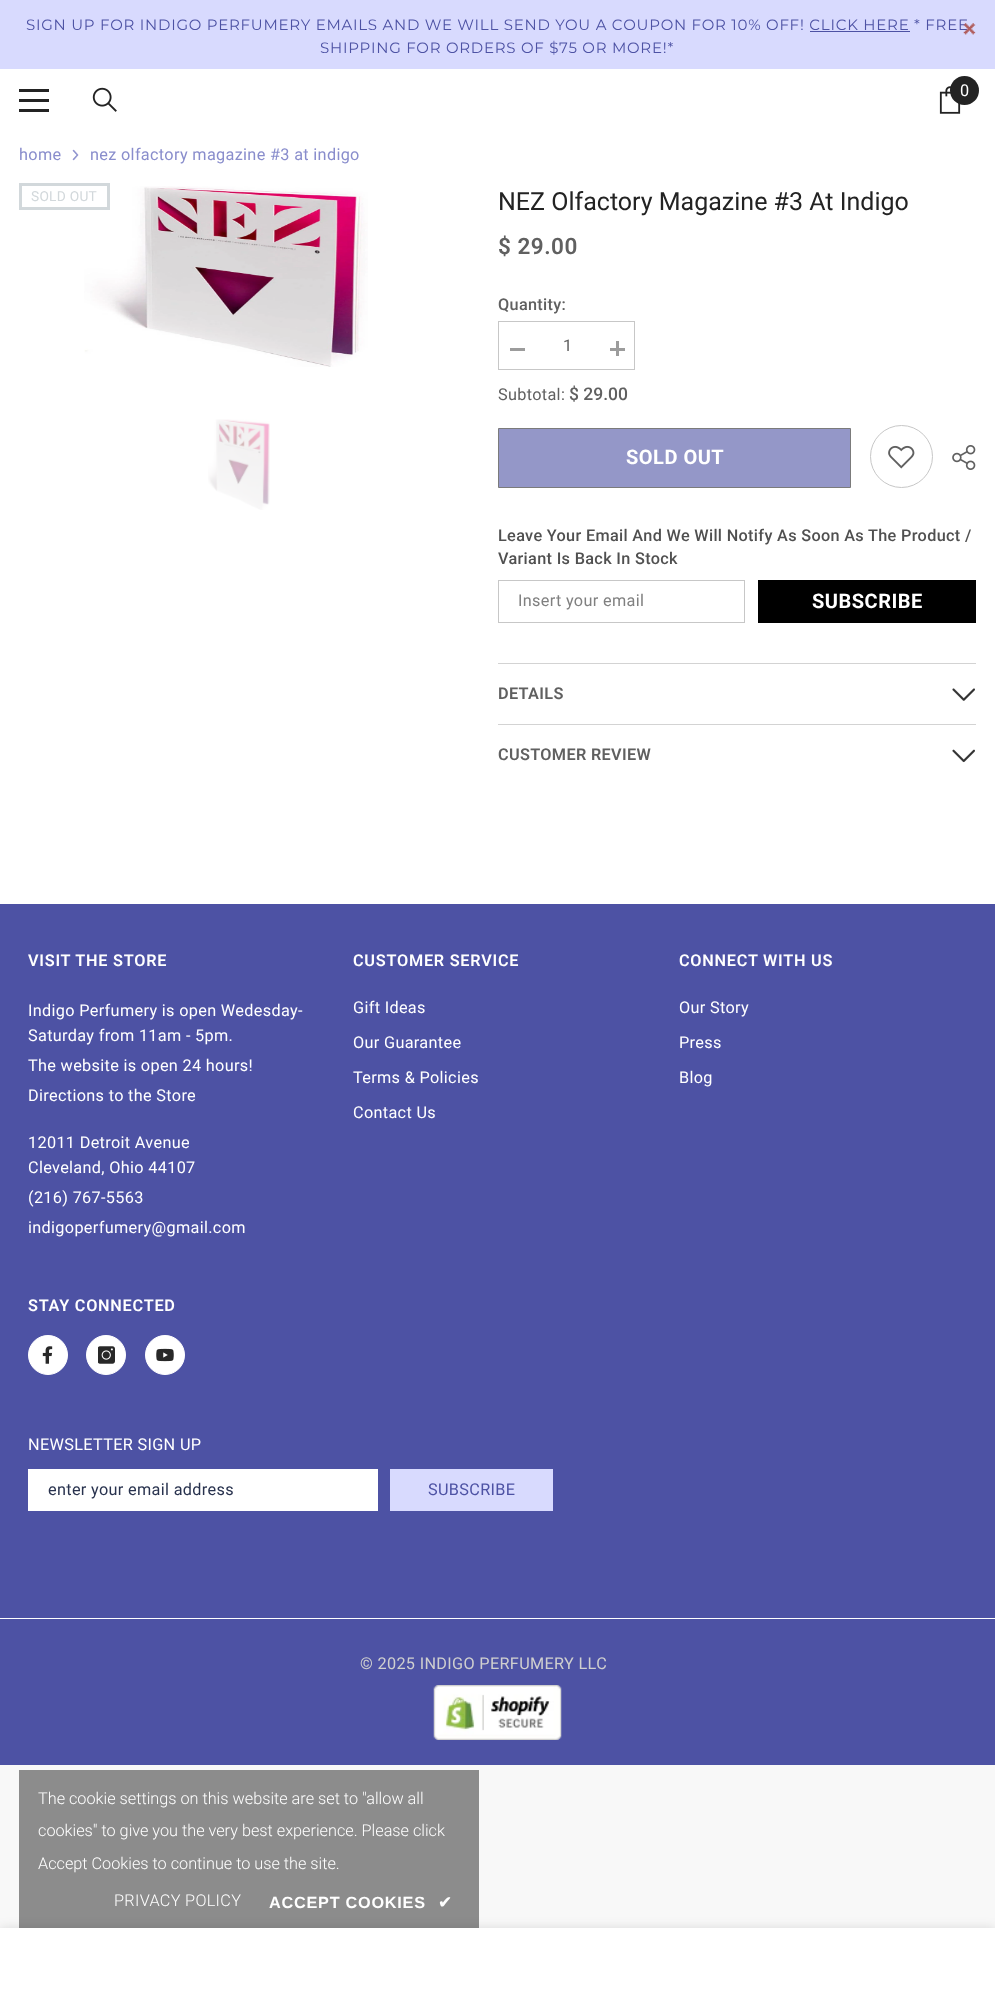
async function draw(canvas) {
  canvas.width = 995;
  canvas.height = 2004;
  const ctx = canvas.getContext('2d');
  ctx.miterLimit = 4;
  ctx.fontKerning = 'normal';
  function label(s, x, y, font, color) {
    ctx.font = font;
    ctx.fillStyle = color;
    ctx.fillText(s, x, y);
  }
  function rect(x, y, w, h, color) {
    ctx.fillStyle = color;
    ctx.fillRect(x, y, w, h);
  }
  async function image(src, x, y, w, h) {
    const img = new Image();
    img.src = src;
    await img.decode();
    ctx.drawImage(img, x, y, w, h);
  }

  rect(0, 0, 995, 2004, '#f8f8f8');
  rect(0, 0, 995, 69, '#d8dafe');
  ctx.letterSpacing = '0.75px';
  label('SIGN UP FOR INDIGO PERFUMERY EMAILS AND WE WILL SEND YOU A COUPON FOR 10% OFF! CLICK HERE * FREE', 26, 30, '15px Montserrat', '#4d52a4');
  rect(810, 31, 100, 1, '#4d52a4');
  label('SHIPPING FOR ORDERS OF $75 OR MORE!*', 320, 53, '15px Montserrat', '#4d52a4');
  await image('assets/img1.png', 963, 23, 13, 12);
  rect(0, 69, 995, 835, '#fff');
  rect(19, 99, 30, 3, '#232323');
  rect(19, 89, 30, 3, '#232323');
  rect(19, 109, 30, 3, '#232323');
  await image('assets/img2.png', 92, 87, 25, 25);
  await image('assets/img3.png', 939, 86, 22, 28);
  ctx.beginPath();
  ctx.arc(964.5, 90.5, 14.5, 0, 2 * Math.PI);
  ctx.fill();
  ctx.letterSpacing = '0px';
  label('0', 960, 96, '16.25px Roboto', '#fff');
  ctx.letterSpacing = '0.33px';
  label('home', 19, 160, '16.25px Roboto', '#898dcc');
  await image('assets/img4.png', 72, 149, 7, 12);
  label('nez olfactory magazine #3 at indigo', 90, 160, '16.25px Roboto', '#898dcc');
  await image('assets/img5.png', 84, 186, 284, 181);
  ctx.strokeStyle = '#d2d8db';
  ctx.lineWidth = 3;
  ctx.strokeRect(20.5, 184.5, 88, 24);
  ctx.letterSpacing = '0.25px';
  label('SOLD OUT', 31, 201, '13.75px Roboto', '#d2d8db');
  await image('assets/img6.png', 208, 419, 62, 91);
  ctx.letterSpacing = '0px';
  label('NEZ Olfactory Magazine #3 At Indigo', 498, 210, '25px Roboto', '#232323');
  ctx.letterSpacing = '0.5px';
  label('$ 29.00', 498, 254, '600 22.5px Roboto', '#606060');
  ctx.letterSpacing = '0.33px';
  label('Quantity:', 498, 310, '500 16.25px Roboto', '#606060');
  ctx.strokeStyle = '#c7c7c7';
  ctx.lineWidth = 1;
  ctx.strokeRect(498.5, 321.5, 136, 48);
  rect(510, 348, 15, 3, '#9c9c9c');
  label('1', 563, 351, '16.25px Roboto', '#606060');
  rect(610, 348, 15, 3, '#9c9c9c');
  rect(616, 341, 3, 15, '#9c9c9c');
  label('Subtotal:', 498, 400, '16.25px Roboto', '#606060');
  ctx.letterSpacing = '0px';
  label('$ 29.00', 569, 400, '500 17.5px Roboto', '#606060');
  ctx.fillStyle = '#9497c8';
  ctx.beginPath();
  ctx.rect(498.5, 428.5, 352, 59);
  ctx.fill();
  ctx.strokeStyle = '#7b7b7b';
  ctx.stroke();
  ctx.letterSpacing = '0.5px';
  label('SOLD OUT', 626, 464, 'bold 20px Roboto', '#fff');
  ctx.beginPath();
  ctx.arc(901.5, 456.5, 31, 0, 2 * Math.PI);
  ctx.strokeStyle = '#c7c7c7';
  ctx.stroke();
  await image('assets/img7.png', 888, 445, 27, 24);
  await image('assets/img8.png', 952, 445, 24, 25);
  ctx.letterSpacing = '0.33px';
  label('Leave Your Email And We Will Notify As Soon As The Product /', 498, 541, '500 16.25px Roboto', '#505050');
  label('Variant Is Back In Stock', 498, 564, '500 16.25px Roboto', '#505050');
  ctx.strokeRect(498.5, 580.5, 246, 42);
  label('Insert your email', 518, 606, '16.25px Roboto', '#808080');
  rect(758, 580, 218, 43, '#000');
  ctx.letterSpacing = '0.5px';
  label('SUBSCRIBE', 812, 608, 'bold 20px Roboto', '#fff');
  rect(498, 663, 478, 1, '#d3d3d3');
  ctx.letterSpacing = '0.33px';
  label('DETAILS', 498, 699, '600 16.25px Roboto', '#606060');
  await image('assets/img9.png', 952, 688, 23, 13);
  rect(498, 724, 478, 1, '#d3d3d3');
  label('CUSTOMER REVIEW', 498, 760, '600 16.25px Roboto', '#606060');
  await image('assets/img10.png', 952, 749, 23, 14);
  rect(0, 904, 995, 714, '#4d52a4');
  ctx.letterSpacing = '0.75px';
  label('VISIT THE STORE', 28, 966, '600 16.25px Roboto', '#fff');
  ctx.letterSpacing = '0.33px';
  label('Indigo Perfumery is open Wedesday-', 28, 1016, '16.25px Roboto', '#fff');
  label('Saturday from 11am - 5pm.', 28, 1041, '16.25px Roboto', '#fff');
  label('The website is open 24 hours!', 28, 1071, '16.25px Roboto', '#fff');
  label('Directions to the Store', 28, 1101, '16.25px Roboto', '#fff');
  label('12011 Detroit Avenue', 28, 1148, '16.25px Roboto', '#fff');
  label('Cleveland, Ohio 44107', 28, 1173, '16.25px Roboto', '#fff');
  label('(216) 767-5563', 28, 1203, '16.25px Roboto', '#fff');
  label('indigoperfumery@gmail.com', 28, 1233, '16.25px Roboto', '#fff');
  ctx.letterSpacing = '0.75px';
  label('CUSTOMER SERVICE', 353, 966, '600 16.25px Roboto', '#fff');
  ctx.letterSpacing = '0.33px';
  label('Gift Ideas', 353, 1013, '16.25px Roboto', '#fff');
  label('Our Guarantee', 353, 1048, '16.25px Roboto', '#fff');
  label('Terms & Policies', 353, 1083, '16.25px Roboto', '#fff');
  label('Contact Us', 353, 1118, '16.25px Roboto', '#fff');
  ctx.letterSpacing = '0.75px';
  label('CONNECT WITH US', 679, 966, '600 16.25px Roboto', '#fff');
  ctx.letterSpacing = '0.33px';
  label('Our Story', 679, 1013, '16.25px Roboto', '#fff');
  label('Press', 679, 1048, '16.25px Roboto', '#fff');
  label('Blog', 679, 1083, '16.25px Roboto', '#fff');
  ctx.letterSpacing = '0.75px';
  label('STAY CONNECTED', 28, 1311, '600 16.25px Roboto', '#fff');
  ctx.beginPath();
  ctx.arc(48, 1355, 19.5, 0, 2 * Math.PI);
  ctx.fill();
  ctx.strokeStyle = '#fff';
  ctx.stroke();
  await image('assets/img11.png', 42, 1346, 11, 18);
  ctx.beginPath();
  ctx.arc(106, 1355, 19.5, 0, 2 * Math.PI);
  ctx.fill();
  ctx.stroke();
  await image('assets/img12.png', 98, 1346, 17, 18);
  ctx.beginPath();
  ctx.arc(165, 1355, 19.5, 0, 2 * Math.PI);
  ctx.fill();
  ctx.stroke();
  await image('assets/img13.png', 156, 1348, 18, 14);
  ctx.letterSpacing = '0.33px';
  label('NEWSLETTER SIGN UP', 28, 1450, '16.25px Roboto', '#fff');
  rect(28, 1469, 350, 42, '#fff');
  label('enter your email address', 48, 1495, '16.25px Roboto', '#28324e');
  rect(390, 1469, 163, 42, '#d8dafe');
  label('SUBSCRIBE', 428, 1495, '16.25px Roboto', '#4d52a4');
  rect(0, 1619, 995, 146, '#4d52a4');
  rect(0, 1618, 995, 1, '#fff');
  label('© 2025 INDIGO PERFUMERY LLC', 360, 1669, '16.25px Roboto', '#cfcfcf');
  await image('assets/img14.png', 433, 1685, 129, 55);
  rect(19, 1770, 460, 158, '#8c8c8c');
  ctx.fillStyle = '#0000001f';
  ctx.filter = 'blur(5.5px)';
  ctx.beginPath();
  ctx.rect(0, 1928, 995, 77);
  ctx.fill();
  ctx.filter = 'none';
  rect(0, 1928, 995, 76, '#fff');
  ctx.letterSpacing = '0px';
  label('The cookie settings on this website are set to "allow all', 38, 1804, '300 16.25px Roboto', '#fff');
  label('cookies" to give you the very best experience. Please click', 38, 1836, '300 16.25px Roboto', '#fff');
  label('Accept Cookies to continue to use the site.', 38, 1869, '300 16.25px Roboto', '#fff');
  ctx.letterSpacing = '0.33px';
  label('PRIVACY POLICY', 114, 1906, '300 16.25px Roboto', '#fff');
  ctx.letterSpacing = '0.75px';
  label('ACCEPT COOKIES', 269, 1908, 'bold 16.25px Liberation Sans', '#fff');
  label('✔', 438, 1908, 'bold 16.25px DejaVu Sans', '#fff');
}

draw(document.querySelector('canvas'));
